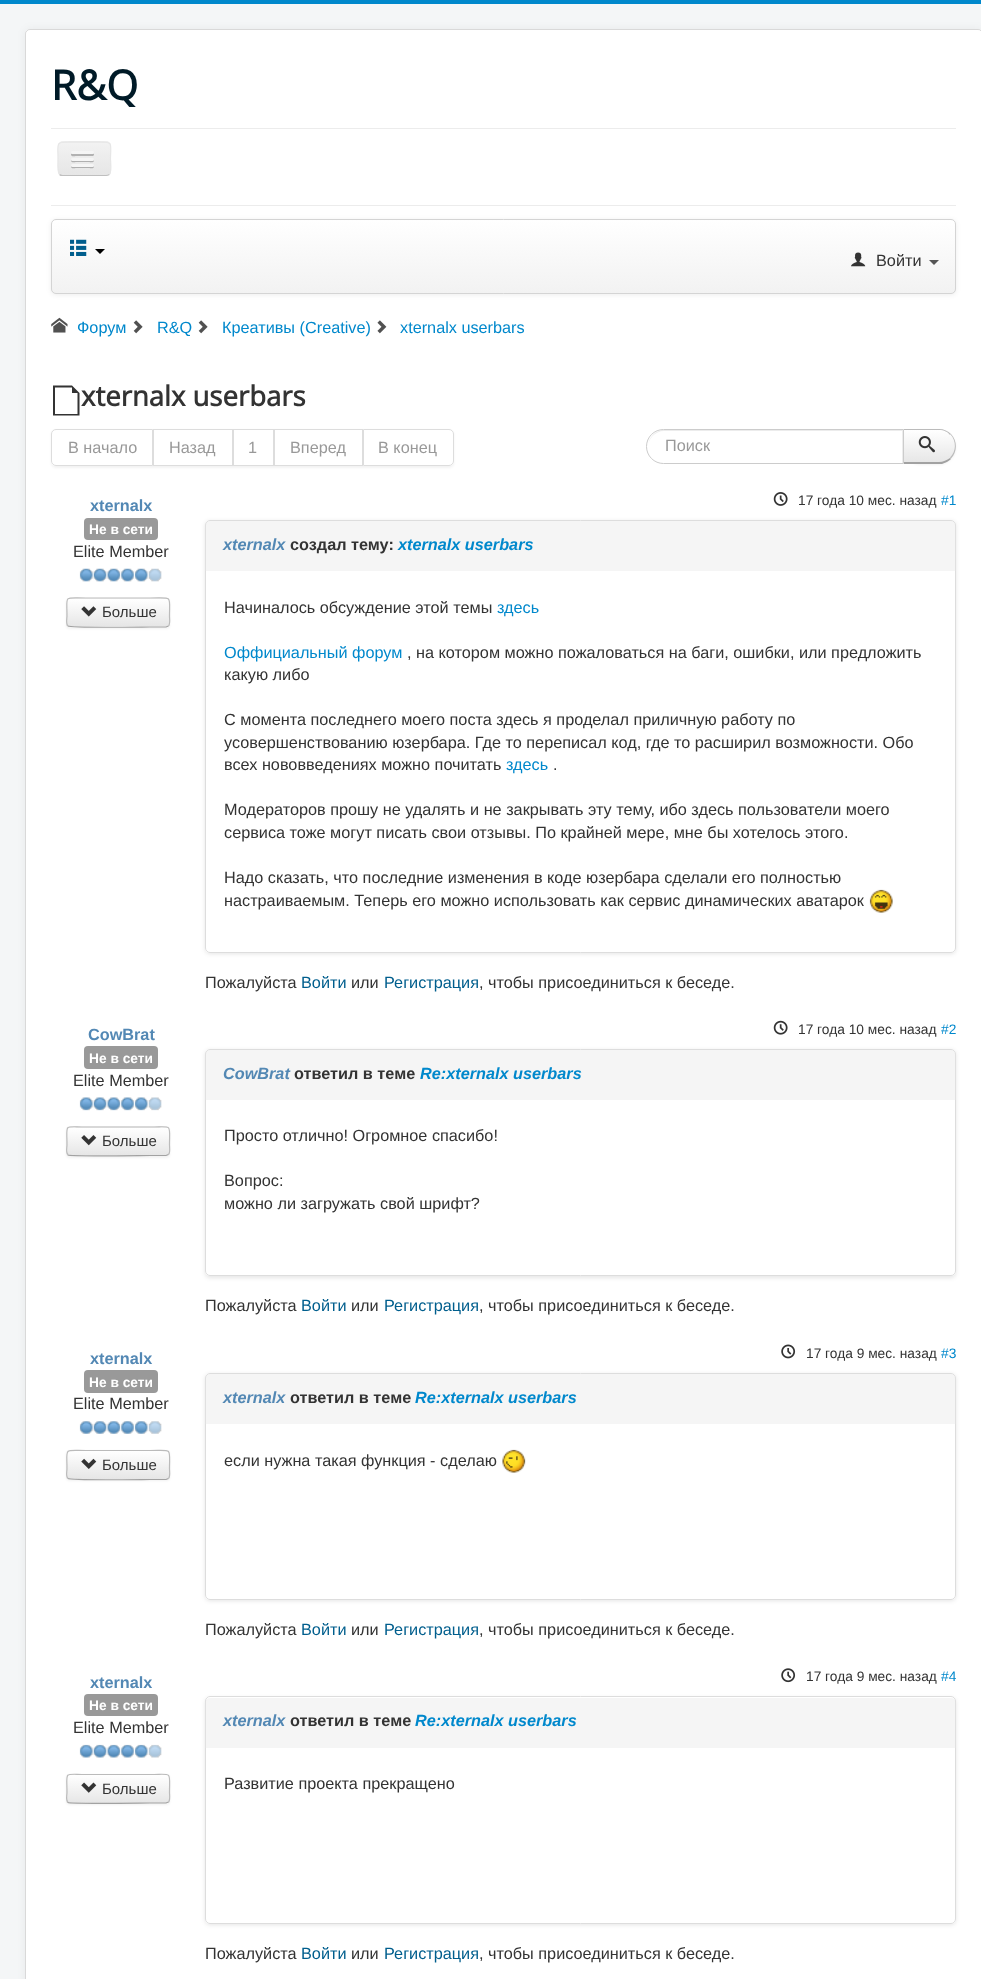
async function draw(canvas) {
  canvas.width = 981;
  canvas.height = 1979;
  const ctx = canvas.getContext('2d');
  ctx.miterLimit = 4;
  ctx.fontKerning = 'normal';
  function label(s, x, y, font, color) {
    ctx.font = font;
    ctx.fillStyle = color;
    ctx.fillText(s, x, y);
  }
  function rect(x, y, w, h, color) {
    ctx.fillStyle = color;
    ctx.fillRect(x, y, w, h);
  }
  function roundedRect(x, y, w, h, r, color) {
    ctx.fillStyle = color;
    ctx.beginPath();
    ctx.roundRect(x, y, w, h, r);
    ctx.fill();
  }
  async function image(src, x, y, w, h) {
    const img = new Image();
    img.src = src;
    await img.decode();
    ctx.drawImage(img, x, y, w, h);
  }
  let gradient, path;

  rect(0, 0, 981, 1979, '#f4f6f7');
  rect(0, 0, 981, 4, '#08c');
  ctx.fillStyle = '#0000000d';
  ctx.filter = 'blur(4px)';
  ctx.beginPath();
  ctx.roundRect(25, 29, 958, 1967, 5);
  ctx.fill();
  ctx.filter = 'none';
  roundedRect(25, 29, 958, 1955, 5, '#fff');
  ctx.beginPath();
  ctx.roundRect(25.5, 29.5, 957, 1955, 4.5);
  ctx.strokeStyle = '#00000026';
  ctx.stroke();
  label('R&Q', 51, 100, 'bold 41px Open Sans', '#001a27');
  rect(51, 128, 905, 1, '#ececec');
  rect(51, 205, 905, 1, '#ececec');
  roundedRect(58, 141, 53, 35, 5, '#ededed');
  ctx.save();
  ctx.beginPath();
  ctx.roundRect(58, 141, 53, 35, 5);
  ctx.clip();
  gradient = ctx.createLinearGradient(84, 143, 84, 175);
  gradient.addColorStop(0, '#f2f2f2');
  gradient.addColorStop(1, '#e6e6e6');
  ctx.fillStyle = gradient;
  ctx.fillRect(58, 143, 53, 32);
  ctx.restore();
  path = new Path2D('M109.5 174.5C108.5 175 107.5 175.5 106 175.5H62.5C61.5 175.5 60 175 59.5 174.5');
  ctx.strokeStyle = '#bfbfbf';
  ctx.lineWidth = 1.2;
  ctx.stroke(path);
  path = new Path2D('M59.5 174.5C57 172 58 162 58 159C58 143 55 142 70 142H99C114 142 110.5 143 110.5 159C110.5 162 112 172 109.5 174.5');
  ctx.strokeStyle = '#e6e6e6';
  ctx.stroke(path);
  ctx.fillStyle = '#b2b2b2';
  path = new Path2D('M71.5 153.5C71 153.5 71 154.5 71 155C71.5 157 75 156 76 156H93C94 155.5 94.5 154 93.5 153.5C92.5 154 72.5 154 71.5 153.5Z');
  ctx.fill(path);
  roundedRect(71, 151, 23, 3, 1.5, '#f5f5f5');
  ctx.fillStyle = '#b0b0b0';
  path = new Path2D('M71.5 159.5L71 161C71.5 163 75 162 76 162H89C90 162 93.5 163 94 161L93.5 159.5L92.5 160H72.5Z');
  ctx.fill(path);
  roundedRect(71, 158, 23, 3, 1.5, '#f5f5f5');
  ctx.fillStyle = '#afafaf';
  path = new Path2D('M71.5 165.5L71 167C71.5 169 75 168 76 168H89C90 168 93.5 169 94 167L93.5 165.5C93.5 166 93 166 92.5 166H72.5C72 166 71.5 166 71.5 165.5Z');
  ctx.fill(path);
  roundedRect(71, 164, 23, 3, 1.5, '#f5f5f5');
  ctx.fillStyle = '#00000012';
  ctx.filter = 'blur(2.5px)';
  ctx.beginPath();
  ctx.roundRect(51, 220, 905, 75, 5);
  ctx.fill();
  ctx.filter = 'none';
  ctx.save();
  ctx.beginPath();
  ctx.roundRect(51, 219, 905, 75, 5);
  ctx.clip();
  gradient = ctx.createLinearGradient(504, 220, 504, 293);
  gradient.addColorStop(0, '#fff');
  gradient.addColorStop(1, '#f2f2f2');
  ctx.fillStyle = gradient;
  ctx.fillRect(51, 220, 905, 73);
  ctx.restore();
  ctx.beginPath();
  ctx.roundRect(51.5, 219.5, 904, 74, 4.5);
  ctx.strokeStyle = '#d4d4d4';
  ctx.lineWidth = 1;
  ctx.stroke();
  await image('assets/img1.png', 70, 239, 17, 17);
  ctx.fillStyle = '#000';
  path = new Path2D('M95 249H105L100 254Z');
  ctx.fill(path);
  await image('assets/img2.png', 851, 252, 15, 15);
  label('Войти', 876, 266, '16.25px Liberation Sans', '#333');
  ctx.fillStyle = '#555';
  path = new Path2D('M929 260H939L934 265Z');
  ctx.fill(path);
  await image('assets/img3.png', 51, 317, 17, 16);
  label('Форум', 77, 333, '16.25px Liberation Sans', '#08c');
  await image('assets/img4.png', 133, 320, 10, 14);
  label('R&Q', 157, 333, '16.25px Liberation Sans', '#08c');
  await image('assets/img4.png', 198, 320, 10, 14);
  label('Креативы (Creative)', 222, 333, '16.25px Liberation Sans', '#08c');
  await image('assets/img5.png', 377, 320, 10, 14);
  label('xternalx userbars', 400, 333, '16.25px Liberation Sans', '#08c');
  ctx.fillStyle = '#333';
  path = new Path2D('M72 385.5L79.5 393V415.5H53V385.5ZM77.5 414V393H72V387.5H55V414Z');
  ctx.fill(path);
  label('xternalx userbars', 81, 406, 'bold 27.5px Open Sans', '#333');
  ctx.save();
  path = new Path2D('M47 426H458V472H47ZM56 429H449C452 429 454 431 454 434V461C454 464 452 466 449 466H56C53 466 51 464 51 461V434C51 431 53 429 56 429Z');
  ctx.clip(path, 'evenodd');
  ctx.fillStyle = '#0000000d';
  ctx.filter = 'blur(1px)';
  ctx.beginPath();
  ctx.roundRect(51, 430, 403, 38, 5);
  ctx.fill();
  ctx.filter = 'none';
  ctx.restore();
  ctx.beginPath();
  ctx.roundRect(51.5, 429.5, 101, 36, [4.5, 0, 0, 4.5]);
  ctx.strokeStyle = '#ddd';
  ctx.stroke();
  label('В начало', 68, 453, '16.25px Liberation Sans', '#999');
  ctx.strokeRect(153.5, 429.5, 79, 36);
  label('Назад', 169, 453, '16.25px Liberation Sans', '#999');
  ctx.strokeRect(233.5, 429.5, 40, 36);
  label('1', 248, 453, '16.25px Liberation Sans', '#999');
  ctx.strokeRect(274.5, 429.5, 88, 36);
  label('Вперед', 290, 453, '16.25px Liberation Sans', '#999');
  ctx.beginPath();
  ctx.roundRect(363.5, 429.5, 90, 36, [0, 4.5, 4.5, 0]);
  ctx.stroke();
  label('В конец', 378, 453, '16.25px Liberation Sans', '#999');
  ctx.fillStyle = '#0000000d';
  ctx.filter = 'blur(1px)';
  ctx.beginPath();
  ctx.roundRect(903, 430, 53, 35, 17.5);
  ctx.fill();
  ctx.filter = 'none';
  ctx.save();
  ctx.beginPath();
  ctx.roundRect(903, 429, 53, 35, [0, 17.5, 17.5, 0]);
  ctx.clip();
  gradient = ctx.createLinearGradient(929, 430, 929, 463);
  gradient.addColorStop(0, '#fff');
  gradient.addColorStop(1, '#e6e6e6');
  ctx.fillStyle = gradient;
  ctx.fillRect(904, 430, 52, 33);
  ctx.restore();
  ctx.fillStyle = '#bbb';
  path = new Path2D('M904 430H939C944 430 948 432 950 435L951 434C948 431 944 429 939 429H903Z');
  ctx.fill(path);
  path = new Path2D('M951 434C957.5 441 957.5 451.5 951 458.5L950 457.5C956.5 451.5 956.5 441 950.5 434.5Z');
  ctx.fill(path);
  ctx.fillStyle = '#a2a2a2';
  path = new Path2D('M951 459C949 461 945 463 942 464H902L904 462H939C943 462 947 460 950 458Z');
  ctx.fill(path);
  ctx.fillStyle = '#fff';
  ctx.beginPath();
  ctx.roundRect(646, 429, 258, 35, [17.5, 0, 0, 17.5]);
  ctx.fill();
  ctx.fillStyle = '#ececec';
  path = new Path2D('M664 431H902V463H903V430H664C655 430 648 438 648 447C648 439 655 431 664 431Z');
  ctx.fill(path);
  ctx.beginPath();
  ctx.roundRect(646.5, 429.5, 257, 34, [17, 0, 0, 17]);
  ctx.strokeStyle = '#ccc';
  ctx.stroke();
  label('Поиск', 665, 451, '16.25px Liberation Sans', '#999');
  await image('assets/img6.png', 918, 436, 17, 17);
  label('xternalx', 90, 511, 'bold 16.25px Liberation Sans', '#5388b4');
  roundedRect(84, 518, 74, 22, 4, '#999');
  label('Не в сети', 89, 534, 'bold 13.75px Liberation Sans', '#fff');
  label('Elite Member', 73, 557, '16.25px Liberation Sans', '#333');
  await image('assets/img7.png', 79, 568, 83, 14);
  ctx.fillStyle = '#0000000d';
  ctx.filter = 'blur(1px)';
  ctx.beginPath();
  ctx.roundRect(66, 599, 104, 30, 4);
  ctx.fill();
  ctx.filter = 'none';
  roundedRect(66, 598, 104, 30, 4, '#f5f5f5');
  ctx.save();
  ctx.beginPath();
  ctx.roundRect(66, 598, 104, 30, 4);
  ctx.clip();
  gradient = ctx.createLinearGradient(118, 599, 118, 626);
  gradient.addColorStop(0, '#fff');
  gradient.addColorStop(1, '#e6e6e6');
  ctx.fillStyle = gradient;
  ctx.fillRect(66, 599, 104, 27);
  ctx.restore();
  path = new Path2D('M168.5 626L166 627H150C141.5 627 70 628 68 626');
  ctx.strokeStyle = '#a2a2a2';
  ctx.lineWidth = 1.2;
  ctx.stroke(path);
  path = new Path2D('M68 626C65.5 623.5 67 619 67 616C67 594.5 63 598 86 598H150C173 598 169.5 594.5 169.5 616C169.5 619 170.5 623.5 168.5 626');
  ctx.strokeStyle = '#bbb';
  ctx.stroke(path);
  await image('assets/img8.png', 81, 606, 16, 11);
  label('Больше', 102, 617, '15px Liberation Sans', '#333');
  await image('assets/img9.png', 773, 492, 15, 14);
  label('17 года 10 мес. назад', 798, 505, '13.75px Liberation Sans', '#333');
  label('#1', 941, 505, '13.75px Liberation Sans', '#08c');
  ctx.save();
  path = new Path2D('M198 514H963V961H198ZM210 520H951C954 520 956 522 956 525V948C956 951 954 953 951 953H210C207 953 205 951 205 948V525C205 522 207 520 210 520Z');
  ctx.clip(path, 'evenodd');
  ctx.fillStyle = '#0000001a';
  ctx.filter = 'blur(2px)';
  ctx.beginPath();
  ctx.roundRect(205, 521, 751, 433, 5);
  ctx.fill();
  ctx.filter = 'none';
  ctx.restore();
  ctx.beginPath();
  ctx.roundRect(205.5, 520.5, 750, 432, 4.5);
  ctx.strokeStyle = '#ddd';
  ctx.lineWidth = 1;
  ctx.stroke();
  ctx.fillStyle = '#e5e5e566';
  ctx.beginPath();
  ctx.roundRect(205, 521, 751, 50, [5, 5, 0, 0]);
  ctx.fill();
  label('xternalx', 223, 550, 'italic bold 16.25px Liberation Sans', '#5388b4');
  label('создал тему:', 290, 550, 'bold 16.25px Liberation Sans', '#333');
  label('xternalx userbars', 398, 550, 'italic bold 16.25px Liberation Sans', '#08c');
  label('Начиналось обсуждение этой темы', 224, 613, '16.25px Liberation Sans', '#333');
  label('здесь', 497, 613, '16.25px Liberation Sans', '#08c');
  label('Оффициальный форум', 224, 658, '16.25px Liberation Sans', '#08c');
  label(', на котором можно пожаловаться на баги, ошибки, или предложить', 407, 658, '16.25px Liberation Sans', '#333');
  label('какую либо', 224, 680, '16.25px Liberation Sans', '#333');
  label('С момента последнего моего поста здесь я проделал приличную работу по', 224, 725, '16.25px Liberation Sans', '#333');
  label('усовершенствованию юзербара. Где то переписал код, где то расширил возможности. Обо', 224, 748, '16.25px Liberation Sans', '#333');
  label('всех нововведениях можно почитать', 224, 770, '16.25px Liberation Sans', '#333');
  label('здесь', 506, 770, '16.25px Liberation Sans', '#08c');
  label('.', 553, 770, '16.25px Liberation Sans', '#333');
  label('Модераторов прошу не удалять и не закрывать эту тему, ибо здесь пользователи моего', 224, 815, '16.25px Liberation Sans', '#333');
  label('сервиса тоже могут писать свои отзывы. По крайней мере, мне бы хотелось этого.', 224, 838, '16.25px Liberation Sans', '#333');
  label('Надо сказать, что последние изменения в коде юзербара сделали его полностью', 224, 883, '16.25px Liberation Sans', '#333');
  label('настраиваемым. Теперь его можно использовать как сервис динамических аватарок', 224, 906, '16.25px Liberation Sans', '#333');
  await image('assets/img10.png', 869, 889, 24, 24);
  label('Пожалуйста', 205, 988, '16.25px Liberation Sans', '#333');
  label('Войти', 301, 988, '16.25px Liberation Sans', '#005e8d');
  label('или', 351, 988, '16.25px Liberation Sans', '#333');
  label('Регистрация', 384, 988, '16.25px Liberation Sans', '#005e8d');
  label(', чтобы присоединиться к беседе.', 479, 988, '16.25px Liberation Sans', '#333');
  label('CowBrat', 88, 1040, 'bold 16.25px Liberation Sans', '#5388b4');
  roundedRect(84, 1046, 74, 23, 4, '#999');
  label('Не в сети', 89, 1063, 'bold 13.75px Liberation Sans', '#fff');
  label('Elite Member', 73, 1086, '16.25px Liberation Sans', '#333');
  await image('assets/img11.png', 79, 1097, 83, 14);
  ctx.fillStyle = '#0000000d';
  ctx.filter = 'blur(1px)';
  ctx.beginPath();
  ctx.roundRect(66, 1128, 104, 30, 4);
  ctx.fill();
  ctx.filter = 'none';
  roundedRect(66, 1126, 104, 30, 4, '#f5f5f5');
  ctx.save();
  ctx.beginPath();
  ctx.roundRect(66, 1126, 104, 30, 4);
  ctx.clip();
  gradient = ctx.createLinearGradient(118, 1128, 118, 1155);
  gradient.addColorStop(0, '#fff');
  gradient.addColorStop(1, '#e6e6e6');
  ctx.fillStyle = gradient;
  ctx.fillRect(66, 1128, 104, 27);
  ctx.restore();
  path = new Path2D('M168.5 1154.5L166 1155.5H150C141.5 1155.5 70 1156.5 68 1155V1154.5');
  ctx.strokeStyle = '#a2a2a2';
  ctx.lineWidth = 1.2;
  ctx.stroke(path);
  path = new Path2D('M68 1154.5C65.5 1152.5 67 1147.5 67 1145C67 1123 63 1127 86 1127H150C173 1127 169.5 1123 169.5 1145C169.5 1147.5 170.5 1152.5 168.5 1154.5');
  ctx.strokeStyle = '#bbb';
  ctx.stroke(path);
  await image('assets/img12.png', 81, 1135, 16, 11);
  label('Больше', 102, 1146, '15px Liberation Sans', '#333');
  await image('assets/img13.png', 773, 1020, 15, 15);
  label('17 года 10 мес. назад', 798, 1034, '13.75px Liberation Sans', '#333');
  label('#2', 941, 1034, '13.75px Liberation Sans', '#08c');
  ctx.save();
  path = new Path2D('M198 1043H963V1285H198ZM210 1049H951C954 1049 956 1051 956 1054V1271C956 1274 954 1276 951 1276H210C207 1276 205 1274 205 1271V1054C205 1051 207 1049 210 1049Z');
  ctx.clip(path, 'evenodd');
  ctx.fillStyle = '#0000001a';
  ctx.filter = 'blur(2px)';
  ctx.beginPath();
  ctx.roundRect(205, 1050, 751, 228, 5);
  ctx.fill();
  ctx.filter = 'none';
  ctx.restore();
  ctx.beginPath();
  ctx.roundRect(205.5, 1049.5, 750, 226, 4.5);
  ctx.strokeStyle = '#ddd';
  ctx.lineWidth = 1;
  ctx.stroke();
  ctx.fillStyle = '#e5e5e566';
  ctx.beginPath();
  ctx.roundRect(205, 1050, 751, 50, [5, 5, 0, 0]);
  ctx.fill();
  label('CowBrat', 223, 1079, 'italic bold 16.25px Liberation Sans', '#5388b4');
  label('ответил в теме', 294, 1079, 'bold 16.25px Liberation Sans', '#333');
  label('Re:xternalx userbars', 420, 1079, 'italic bold 16.25px Liberation Sans', '#08c');
  label('Просто отлично! Огромное спасибо!', 224, 1141, '16.25px Liberation Sans', '#333');
  label('Вопрос:', 224, 1186, '16.25px Liberation Sans', '#333');
  label('можно ли загружать свой шрифт?', 224, 1209, '16.25px Liberation Sans', '#333');
  label('Пожалуйста', 205, 1311, '16.25px Liberation Sans', '#333');
  label('Войти', 301, 1311, '16.25px Liberation Sans', '#005e8d');
  label('или', 351, 1311, '16.25px Liberation Sans', '#333');
  label('Регистрация', 384, 1311, '16.25px Liberation Sans', '#005e8d');
  label(', чтобы присоединиться к беседе.', 479, 1311, '16.25px Liberation Sans', '#333');
  label('xternalx', 90, 1364, 'bold 16.25px Liberation Sans', '#5388b4');
  roundedRect(84, 1370, 74, 23, 4, '#999');
  label('Не в сети', 89, 1387, 'bold 13.75px Liberation Sans', '#fff');
  label('Elite Member', 73, 1409, '16.25px Liberation Sans', '#333');
  await image('assets/img14.png', 79, 1421, 83, 13);
  ctx.fillStyle = '#0000000d';
  ctx.filter = 'blur(1px)';
  ctx.beginPath();
  ctx.roundRect(66, 1451, 104, 30, 4);
  ctx.fill();
  ctx.filter = 'none';
  roundedRect(66, 1450, 104, 30, 4, '#f5f5f5');
  ctx.save();
  ctx.beginPath();
  ctx.roundRect(66, 1450, 104, 30, 4);
  ctx.clip();
  gradient = ctx.createLinearGradient(118, 1451, 118, 1479);
  gradient.addColorStop(0, '#fff');
  gradient.addColorStop(1, '#e6e6e6');
  ctx.fillStyle = gradient;
  ctx.fillRect(66, 1451, 104, 28);
  ctx.restore();
  path = new Path2D('M168.5 1478.5L166 1479.5H150C141.5 1479.5 70 1480.5 68 1478.5');
  ctx.strokeStyle = '#a2a2a2';
  ctx.lineWidth = 1.2;
  ctx.stroke(path);
  path = new Path2D('M68 1478.5C65.5 1476 67 1471.5 67 1469C67 1447 63 1450.5 86 1450.5H150C173 1450.5 169.5 1447 169.5 1469C169.5 1471.5 170.5 1476 168.5 1478.5');
  ctx.strokeStyle = '#bbb';
  ctx.stroke(path);
  await image('assets/img15.png', 81, 1458, 16, 11);
  label('Больше', 102, 1470, '15px Liberation Sans', '#333');
  await image('assets/img16.png', 781, 1344, 15, 15);
  label('17 года 9 мес. назад', 806, 1358, '13.75px Liberation Sans', '#333');
  label('#3', 941, 1358, '13.75px Liberation Sans', '#08c');
  ctx.save();
  path = new Path2D('M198 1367H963V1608H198ZM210 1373H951C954 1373 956 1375 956 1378V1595C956 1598 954 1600 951 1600H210C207 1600 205 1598 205 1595V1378C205 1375 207 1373 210 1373Z');
  ctx.clip(path, 'evenodd');
  ctx.fillStyle = '#0000001a';
  ctx.filter = 'blur(2px)';
  ctx.beginPath();
  ctx.roundRect(205, 1374, 751, 227, 5);
  ctx.fill();
  ctx.filter = 'none';
  ctx.restore();
  ctx.beginPath();
  ctx.roundRect(205.5, 1373.5, 750, 226, 4.5);
  ctx.strokeStyle = '#ddd';
  ctx.lineWidth = 1;
  ctx.stroke();
  ctx.fillStyle = '#e5e5e566';
  ctx.beginPath();
  ctx.roundRect(205, 1374, 751, 50, [5, 5, 0, 0]);
  ctx.fill();
  label('xternalx', 223, 1403, 'italic bold 16.25px Liberation Sans', '#5388b4');
  label('ответил в теме', 290, 1403, 'bold 16.25px Liberation Sans', '#333');
  label('Re:xternalx userbars', 415, 1403, 'italic bold 16.25px Liberation Sans', '#08c');
  label('если нужна такая функция - сделаю', 224, 1466, '16.25px Liberation Sans', '#333');
  await image('assets/img17.png', 502, 1449, 24, 24);
  label('Пожалуйста', 205, 1635, '16.25px Liberation Sans', '#333');
  label('Войти', 301, 1635, '16.25px Liberation Sans', '#005e8d');
  label('или', 351, 1635, '16.25px Liberation Sans', '#333');
  label('Регистрация', 384, 1635, '16.25px Liberation Sans', '#005e8d');
  label(', чтобы присоединиться к беседе.', 479, 1635, '16.25px Liberation Sans', '#333');
  label('xternalx', 90, 1688, 'bold 16.25px Liberation Sans', '#5388b4');
  roundedRect(84, 1694, 74, 22, 4, '#999');
  label('Не в сети', 89, 1710, 'bold 13.75px Liberation Sans', '#fff');
  label('Elite Member', 73, 1733, '16.25px Liberation Sans', '#333');
  await image('assets/img18.png', 79, 1744, 83, 14);
  ctx.fillStyle = '#0000000d';
  ctx.filter = 'blur(1px)';
  ctx.beginPath();
  ctx.roundRect(66, 1775, 104, 30, 4);
  ctx.fill();
  ctx.filter = 'none';
  roundedRect(66, 1774, 104, 30, 4, '#f5f5f5');
  ctx.save();
  ctx.beginPath();
  ctx.roundRect(66, 1774, 104, 30, 4);
  ctx.clip();
  gradient = ctx.createLinearGradient(118, 1775, 118, 1803);
  gradient.addColorStop(0, '#fff');
  gradient.addColorStop(1, '#e6e6e6');
  ctx.fillStyle = gradient;
  ctx.fillRect(66, 1775, 104, 28);
  ctx.restore();
  path = new Path2D('M168.5 1802L166 1803H150C141.5 1803 70 1804 68 1802.5V1802');
  ctx.strokeStyle = '#a2a2a2';
  ctx.lineWidth = 1.2;
  ctx.stroke(path);
  path = new Path2D('M68 1802C65.5 1800 67 1795 67 1792.5C67 1770.5 63 1774.5 86 1774.5H150C173 1774.5 169.5 1770.5 169.5 1792.5C169.5 1795 170.5 1800 168.5 1802');
  ctx.strokeStyle = '#bbb';
  ctx.stroke(path);
  await image('assets/img19.png', 81, 1782, 16, 11);
  label('Больше', 102, 1794, '15px Liberation Sans', '#333');
  await image('assets/img20.png', 781, 1668, 15, 15);
  label('17 года 9 мес. назад', 806, 1681, '13.75px Liberation Sans', '#333');
  label('#4', 941, 1681, '13.75px Liberation Sans', '#08c');
  ctx.save();
  path = new Path2D('M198 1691H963V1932H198ZM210 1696H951C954 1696 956 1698 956 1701V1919C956 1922 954 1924 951 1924H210C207 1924 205 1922 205 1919V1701C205 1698 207 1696 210 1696Z');
  ctx.clip(path, 'evenodd');
  ctx.fillStyle = '#0000001a';
  ctx.filter = 'blur(2px)';
  ctx.beginPath();
  ctx.roundRect(205, 1698, 751, 227, 5);
  ctx.fill();
  ctx.filter = 'none';
  ctx.restore();
  ctx.beginPath();
  ctx.roundRect(205.5, 1696.5, 750, 227, 4.5);
  ctx.strokeStyle = '#ddd';
  ctx.lineWidth = 1;
  ctx.stroke();
  ctx.fillStyle = '#e5e5e566';
  ctx.beginPath();
  ctx.roundRect(205, 1698, 751, 50, [5, 5, 0, 0]);
  ctx.fill();
  label('xternalx', 223, 1726, 'italic bold 16.25px Liberation Sans', '#5388b4');
  label('ответил в теме', 290, 1726, 'bold 16.25px Liberation Sans', '#333');
  label('Re:xternalx userbars', 415, 1726, 'italic bold 16.25px Liberation Sans', '#08c');
  label('Развитие проекта прекращено', 224, 1789, '16.25px Liberation Sans', '#333');
  label('Пожалуйста', 205, 1959, '16.25px Liberation Sans', '#333');
  label('Войти', 301, 1959, '16.25px Liberation Sans', '#005e8d');
  label('или', 351, 1959, '16.25px Liberation Sans', '#333');
  label('Регистрация', 384, 1959, '16.25px Liberation Sans', '#005e8d');
  label(', чтобы присоединиться к беседе.', 479, 1959, '16.25px Liberation Sans', '#333');
}

draw(document.querySelector('canvas'));
